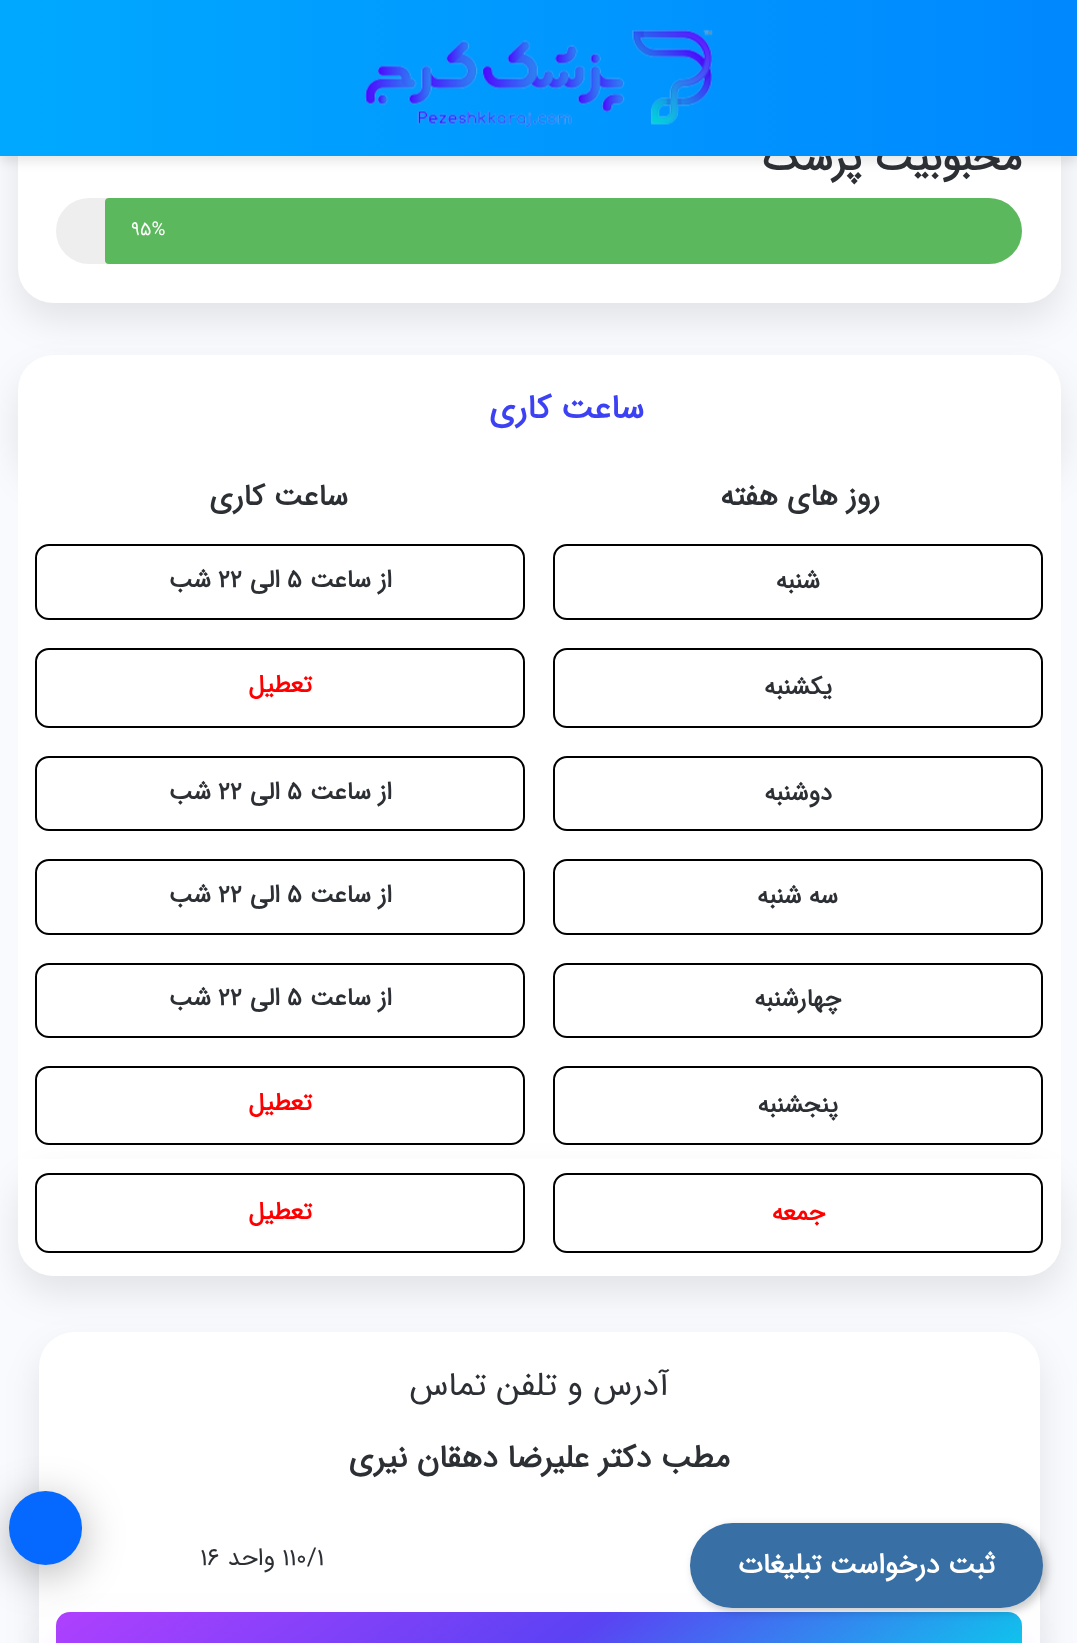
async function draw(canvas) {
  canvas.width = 1077;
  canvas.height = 1643;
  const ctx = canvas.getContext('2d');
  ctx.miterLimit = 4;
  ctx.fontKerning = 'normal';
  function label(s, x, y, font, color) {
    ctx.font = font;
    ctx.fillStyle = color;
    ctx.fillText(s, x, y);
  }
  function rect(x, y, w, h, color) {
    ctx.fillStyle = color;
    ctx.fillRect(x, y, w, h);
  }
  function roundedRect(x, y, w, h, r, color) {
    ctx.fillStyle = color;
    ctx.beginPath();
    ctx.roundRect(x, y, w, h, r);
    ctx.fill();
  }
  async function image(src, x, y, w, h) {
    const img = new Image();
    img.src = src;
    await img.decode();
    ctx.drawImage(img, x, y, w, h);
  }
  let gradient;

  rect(0, 0, 1077, 1643, '#f8fafd');
  ctx.fillStyle = '#00000017';
  ctx.filter = 'blur(17.5px)';
  ctx.beginPath();
  ctx.roundRect(18, -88, 1043, 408, 35);
  ctx.fill();
  ctx.filter = 'none';
  roundedRect(18, -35, 1043, 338, 35, '#fff');
  ctx.fillStyle = '#0000001a';
  ctx.filter = 'blur(6px)';
  ctx.beginPath();
  ctx.rect(0, 5, 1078, 156);
  ctx.fill();
  ctx.filter = 'none';
  ctx.direction = 'rtl';
  label('محبوبیت پزشک', 1022, 170, 'bold 40.25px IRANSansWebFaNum', '#2c2f34');
  gradient = ctx.createLinearGradient(0, 78, 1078, 78);
  gradient.addColorStop(0, '#00a9ff');
  gradient.addColorStop(1, '#08f');
  ctx.fillStyle = gradient;
  ctx.fillRect(0, 0, 1077, 156);
  await image('assets/img1.png', 365, 29, 348, 99);
  roundedRect(56, 198, 966, 66, 33, '#eee');
  ctx.fillStyle = '#5cb85c';
  ctx.beginPath();
  ctx.roundRect(105, 198, 917, 66, [4, 33, 33, 4]);
  ctx.fill();
  ctx.direction = 'ltr';
  label('95%', 131, 235, '19px IRANSansWebFaNum', '#fff');
  ctx.fillStyle = '#00000017';
  ctx.filter = 'blur(17.5px)';
  ctx.beginPath();
  ctx.roundRect(18, 373, 1043, 110, 35);
  ctx.fill();
  ctx.filter = 'none';
  ctx.fillStyle = '#fff';
  ctx.beginPath();
  ctx.roundRect(18, 355, 1043, 111, [35, 35, 0, 0]);
  ctx.fill();
  ctx.direction = 'rtl';
  label('ساعت کاری', 644, 418, 'bold 33.25px IRANSansWebFaNum', '#3c41f4');
  rect(18, 466, 1043, 693, '#fff');
  label('روز های هفته', 880, 505, 'bold 29.75px IRANSansWebFaNum', '#2c2f34');
  label('ساعت کاری', 348, 505, 'bold 29.75px IRANSansWebFaNum', '#2c2f34');
  ctx.beginPath();
  ctx.roundRect(554, 545, 488, 74, 13);
  ctx.strokeStyle = '#000';
  ctx.lineWidth = 2;
  ctx.stroke();
  label('شنبه', 820, 588, 'bold 24.5px IRANSansWebFaNum', '#2c2f34');
  ctx.beginPath();
  ctx.roundRect(36, 545, 488, 74, 13);
  ctx.stroke();
  label('از ساعت', 392, 587, 'bold 24.5px IRANSansWebFaNum', '#2c2f34');
  ctx.direction = 'ltr';
  label('5', 287, 587, 'bold 24.5px IRANSansWebFaNum', '#2c2f34');
  ctx.direction = 'rtl';
  label('الی', 280, 587, 'bold 24.5px IRANSansWebFaNum', '#2c2f34');
  ctx.direction = 'ltr';
  label('22', 218, 587, 'bold 24.5px IRANSansWebFaNum', '#2c2f34');
  ctx.direction = 'rtl';
  label('شب', 211, 587, 'bold 24.5px IRANSansWebFaNum', '#2c2f34');
  ctx.beginPath();
  ctx.roundRect(554, 649, 488, 78, 13);
  ctx.stroke();
  label('یکشنبه', 832, 694, 'bold 24.5px IRANSansWebFaNum', '#2c2f34');
  ctx.beginPath();
  ctx.roundRect(36, 649, 488, 78, 13);
  ctx.stroke();
  label('تعطیل', 312, 692, 'bold 24.5px IRANSansWebFaNum', '#f00');
  ctx.beginPath();
  ctx.roundRect(554, 757, 488, 73, 13);
  ctx.stroke();
  label('دوشنبه', 832, 800, 'bold 24.5px IRANSansWebFaNum', '#2c2f34');
  ctx.beginPath();
  ctx.roundRect(36, 757, 488, 73, 13);
  ctx.stroke();
  label('از ساعت', 392, 799, 'bold 24.5px IRANSansWebFaNum', '#2c2f34');
  ctx.direction = 'ltr';
  label('5', 287, 799, 'bold 24.5px IRANSansWebFaNum', '#2c2f34');
  ctx.direction = 'rtl';
  label('الی', 280, 799, 'bold 24.5px IRANSansWebFaNum', '#2c2f34');
  ctx.direction = 'ltr';
  label('22', 218, 799, 'bold 24.5px IRANSansWebFaNum', '#2c2f34');
  ctx.direction = 'rtl';
  label('شب', 211, 799, 'bold 24.5px IRANSansWebFaNum', '#2c2f34');
  ctx.beginPath();
  ctx.roundRect(554, 860, 488, 74, 13);
  ctx.stroke();
  label('سه شنبه', 838, 903, 'bold 24.5px IRANSansWebFaNum', '#2c2f34');
  ctx.beginPath();
  ctx.roundRect(36, 860, 488, 74, 13);
  ctx.stroke();
  label('از ساعت', 392, 902, 'bold 24.5px IRANSansWebFaNum', '#2c2f34');
  ctx.direction = 'ltr';
  label('5', 287, 902, 'bold 24.5px IRANSansWebFaNum', '#2c2f34');
  ctx.direction = 'rtl';
  label('الی', 280, 902, 'bold 24.5px IRANSansWebFaNum', '#2c2f34');
  ctx.direction = 'ltr';
  label('22', 218, 902, 'bold 24.5px IRANSansWebFaNum', '#2c2f34');
  ctx.direction = 'rtl';
  label('شب', 211, 902, 'bold 24.5px IRANSansWebFaNum', '#2c2f34');
  ctx.beginPath();
  ctx.roundRect(554, 964, 488, 73, 13);
  ctx.stroke();
  label('چهارشنبه', 841, 1006, 'bold 24.5px IRANSansWebFaNum', '#2c2f34');
  ctx.beginPath();
  ctx.roundRect(36, 964, 488, 73, 13);
  ctx.stroke();
  label('از ساعت', 392, 1005, 'bold 24.5px IRANSansWebFaNum', '#2c2f34');
  ctx.direction = 'ltr';
  label('5', 287, 1005, 'bold 24.5px IRANSansWebFaNum', '#2c2f34');
  ctx.direction = 'rtl';
  label('الی', 280, 1005, 'bold 24.5px IRANSansWebFaNum', '#2c2f34');
  ctx.direction = 'ltr';
  label('22', 218, 1005, 'bold 24.5px IRANSansWebFaNum', '#2c2f34');
  ctx.direction = 'rtl';
  label('شب', 211, 1005, 'bold 24.5px IRANSansWebFaNum', '#2c2f34');
  ctx.beginPath();
  ctx.roundRect(554, 1067, 488, 77, 13);
  ctx.stroke();
  label('پنجشنبه', 838, 1112, 'bold 24.5px IRANSansWebFaNum', '#2c2f34');
  ctx.beginPath();
  ctx.roundRect(36, 1067, 488, 77, 13);
  ctx.stroke();
  label('تعطیل', 312, 1110, 'bold 24.5px IRANSansWebFaNum', '#f00');
  ctx.fillStyle = '#00000017';
  ctx.filter = 'blur(17.5px)';
  ctx.beginPath();
  ctx.roundRect(18, 1176, 1043, 117, 35);
  ctx.fill();
  ctx.filter = 'none';
  ctx.fillStyle = '#fff';
  ctx.beginPath();
  ctx.roundRect(18, 1159, 1043, 117, [0, 0, 35, 35]);
  ctx.fill();
  ctx.beginPath();
  ctx.roundRect(554, 1174, 488, 78, 13);
  ctx.stroke();
  label('جمعه', 825, 1220, 'bold 24.5px IRANSansWebFaNum', '#f00');
  ctx.beginPath();
  ctx.roundRect(36, 1174, 488, 78, 13);
  ctx.stroke();
  label('تعطیل', 312, 1219, 'bold 24.5px IRANSansWebFaNum', '#f00');
  ctx.fillStyle = '#00000017';
  ctx.filter = 'blur(17.5px)';
  ctx.beginPath();
  ctx.roundRect(39, 1349, 1001, 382, 35);
  ctx.fill();
  ctx.filter = 'none';
  roundedRect(39, 1332, 1001, 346, 35, '#fff');
  label('آدرس و تلفن تماس', 669, 1395, '33.25px IRANSansWebFaNum', '#2c2f34');
  label('مطب دکتر علیرضا دهقان نیری', 730, 1467, 'bold 31.5px IRANSansWebFaNum', '#2c2f34');
  ctx.direction = 'ltr';
  label('110/1', 282, 1565, '24.5px IRANSansWebFaNum', '#2c2f34');
  ctx.direction = 'rtl';
  label('واحد', 275, 1565, '24.5px IRANSansWebFaNum', '#2c2f34');
  ctx.direction = 'ltr';
  label('16', 200, 1565, '24.5px IRANSansWebFaNum', '#2c2f34');
  ctx.fillStyle = '#9741fc33';
  ctx.filter = 'blur(26px)';
  ctx.beginPath();
  ctx.roundRect(65, 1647, 948, 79, 5);
  ctx.fill();
  ctx.filter = 'none';
  gradient = ctx.createLinearGradient(348, 1400, 730, 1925);
  gradient.addColorStop(0, '#af40ff');
  gradient.addColorStop(0.5, '#5b42f3');
  gradient.addColorStop(1, '#00ddeb');
  ctx.fillStyle = gradient;
  ctx.beginPath();
  ctx.roundRect(56, 1612, 966, 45, 14);
  ctx.fill();
  ctx.fillStyle = '#0000004d';
  ctx.filter = 'blur(22px)';
  ctx.beginPath();
  ctx.roundRect(9, 1500, 73, 73, 36.5);
  ctx.fill();
  ctx.filter = 'none';
  roundedRect(9, 1491, 73, 74, 36.5, '#0669ff');
  ctx.fillStyle = '#00000033';
  ctx.filter = 'blur(4.5px)';
  ctx.beginPath();
  ctx.roundRect(693, 1526, 354, 86, 43);
  ctx.fill();
  ctx.filter = 'none';
  roundedRect(690, 1523, 353, 85, 42.5, '#386fa4');
  ctx.direction = 'rtl';
  label('ثبت درخواست تبلیغات', 995, 1573, 'bold 28px IRANSansWebFaNum', '#fff');
}

draw(document.querySelector('canvas'));
